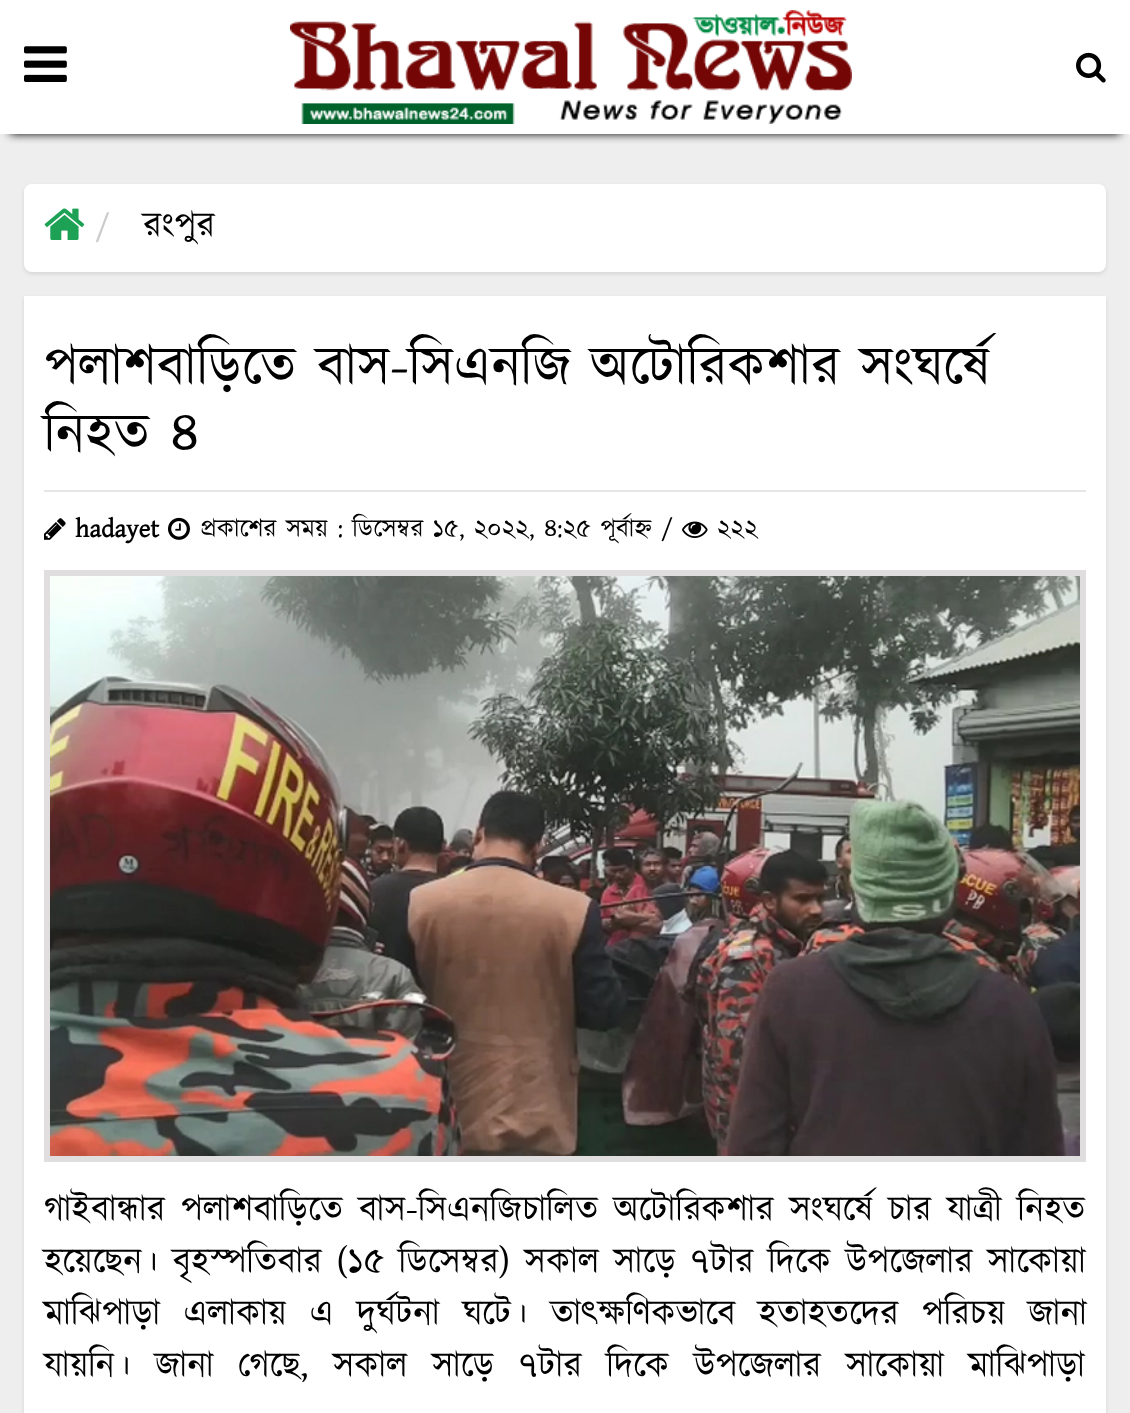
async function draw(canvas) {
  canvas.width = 1130;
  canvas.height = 1413;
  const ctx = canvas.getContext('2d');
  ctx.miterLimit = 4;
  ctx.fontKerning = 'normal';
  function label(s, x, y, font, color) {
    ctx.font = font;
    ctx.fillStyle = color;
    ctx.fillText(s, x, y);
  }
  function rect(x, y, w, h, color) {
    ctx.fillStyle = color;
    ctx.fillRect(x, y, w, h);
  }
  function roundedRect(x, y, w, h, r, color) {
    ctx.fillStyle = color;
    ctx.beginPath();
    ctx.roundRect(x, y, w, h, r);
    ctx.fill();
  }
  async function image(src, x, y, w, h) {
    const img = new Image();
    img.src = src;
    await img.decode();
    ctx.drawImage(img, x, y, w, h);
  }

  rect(0, 0, 1130, 1413, '#eee');
  ctx.fillStyle = '#000';
  ctx.filter = 'blur(5px)';
  ctx.beginPath();
  ctx.rect(10, 20, 1110, 114);
  ctx.fill();
  ctx.filter = 'none';
  rect(0, 0, 1130, 134, '#fff');
  await image('assets/img1.png', 24, 46, 43, 36);
  await image('assets/img2.png', 290, 10, 562, 114);
  await image('assets/img3.png', 1076, 52, 30, 31);
  ctx.fillStyle = '#0000001a';
  ctx.filter = 'blur(2px)';
  ctx.beginPath();
  ctx.roundRect(24, 186, 1082, 88, 8);
  ctx.fill();
  ctx.filter = 'none';
  roundedRect(24, 184, 1082, 88, 8, '#fff');
  await image('assets/img4.png', 44, 208, 41, 32);
  label('/', 95, 237, '32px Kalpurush', '#ccc');
  label('রংপুর', 143, 237, '36px Kalpurush', '#000');
  ctx.fillStyle = '#0000001a';
  ctx.filter = 'blur(2px)';
  ctx.beginPath();
  ctx.rect(24, 298, 1082, 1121);
  ctx.fill();
  ctx.filter = 'none';
  rect(24, 296, 1082, 1117, '#fff');
  label('পলাশবাড়িতে বাস-সিএনজি অটোরিকশার সংঘর্ষে', 44, 385, '56px Kalpurush', '#000');
  label('নিহত ৪', 44, 452, '56px Kalpurush', '#000');
  rect(44, 490, 1042, 2, '#e6e6e6');
  await image('assets/img5.png', 44, 518, 22, 22);
  label('hadayet', 75, 537, 'bold 25.6px Kalpurush', '#000');
  await image('assets/img6.png', 168, 517, 22, 23);
  label('প্রকাশের সময় : ডিসেম্বর ১৫, ২০২২, ৪:২৫ পূর্বাহ্ন /', 200, 537, '25.6px Kalpurush', '#000');
  await image('assets/img7.png', 682, 521, 26, 17);
  label('২২২', 717, 537, '25.6px Kalpurush', '#000');
  ctx.strokeStyle = '#e0dede';
  ctx.lineWidth = 6;
  ctx.strokeRect(47, 573, 1036, 586);
  await image('assets/img8.png', 50, 576, 1030, 580);
  ctx.wordSpacing = '2.5px';
  label('গাইবান্ধার পলাশবাড়িতে বাস-সিএনজিচালিত অটোরিকশার সংঘর্ষে চার যাত্রী নিহত', 44, 1221, '36px Kalpurush', '#000');
  ctx.wordSpacing = '1.5px';
  label('হয়েছেন। বৃহস্পতিবার (১৫ ডিসেম্বর) সকাল সাড়ে ৭টার দিকে উপজেলার সাকোয়া', 44, 1273, '36px Kalpurush', '#000');
  ctx.wordSpacing = '10px';
  label('মাঝিপাড়া এলাকায় এ দুর্ঘটনা ঘটে। তাৎক্ষণিকভাবে হতাহতদের পরিচয় জানা', 44, 1325, '36px Kalpurush', '#000');
  ctx.wordSpacing = '11.5px';
  label('যায়নি। জানা গেছে, সকাল সাড়ে ৭টার দিকে উপজেলার সাকোয়া মাঝিপাড়া', 44, 1377, '36px Kalpurush', '#000');
}

draw(document.querySelector('canvas'));
